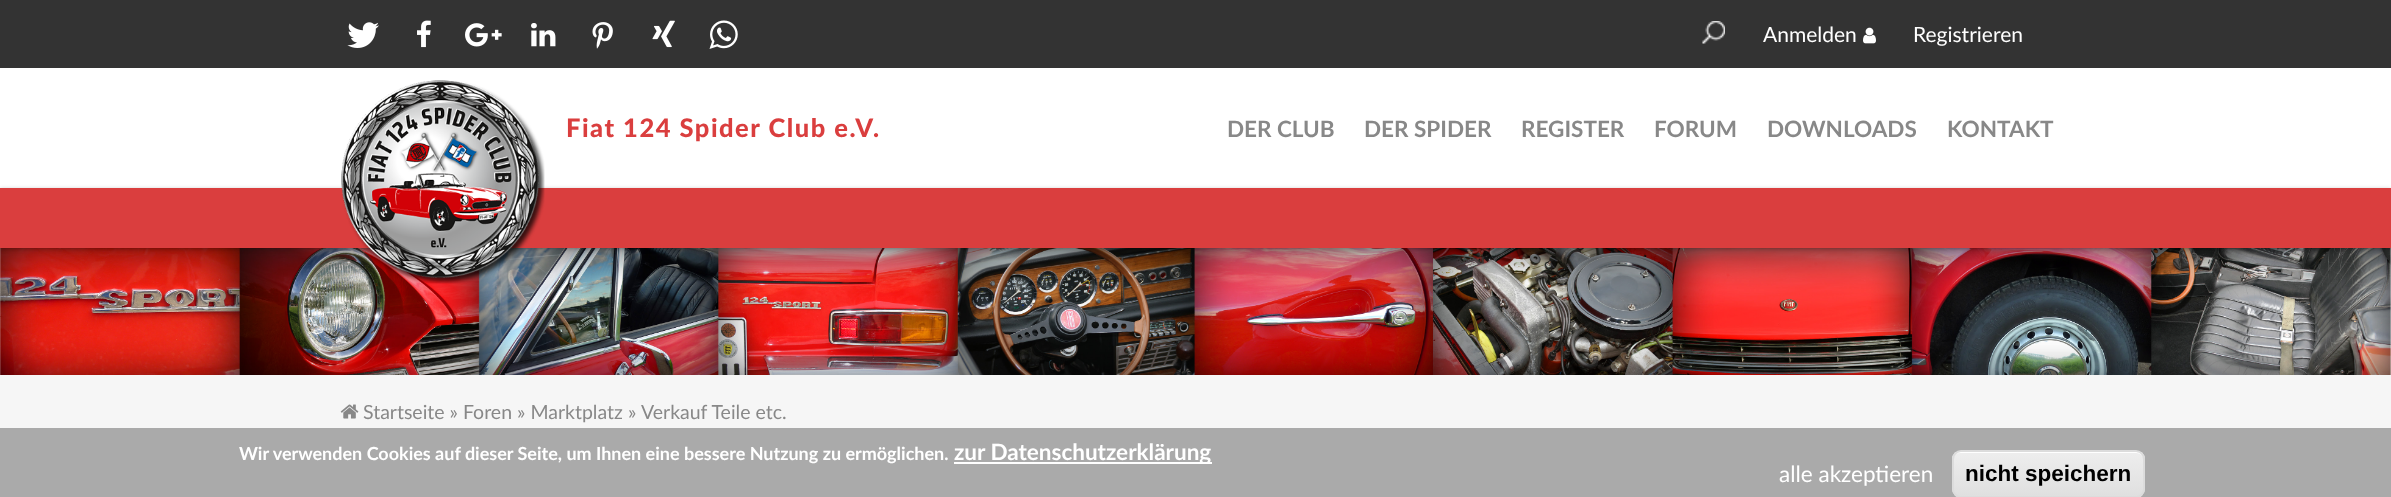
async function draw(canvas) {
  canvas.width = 2391;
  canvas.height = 497;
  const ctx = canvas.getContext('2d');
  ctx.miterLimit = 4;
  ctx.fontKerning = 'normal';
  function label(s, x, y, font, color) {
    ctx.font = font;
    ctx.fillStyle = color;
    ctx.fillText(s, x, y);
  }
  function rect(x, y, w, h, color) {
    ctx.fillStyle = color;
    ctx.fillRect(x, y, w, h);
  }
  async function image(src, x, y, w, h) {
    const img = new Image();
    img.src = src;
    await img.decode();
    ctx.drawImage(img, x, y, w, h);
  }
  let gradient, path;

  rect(0, 0, 2391, 497, '#f6f6f6');
  rect(0, 0, 2391, 68, '#333');
  await image('assets/img1.png', 347, 22, 32, 26);
  await image('assets/img2.png', 417, 20, 14, 28);
  await image('assets/img3.png', 465, 23, 37, 24);
  await image('assets/img4.png', 531, 23, 25, 24);
  await image('assets/img5.png', 592, 22, 21, 27);
  await image('assets/img6.png', 652, 20, 23, 28);
  await image('assets/img7.png', 709, 20, 29, 29);
  await image('assets/img8.png', 1702, 21, 23, 23);
  label('Anmelden', 1763, 42, '21px Lato', '#fff');
  await image('assets/img9.png', 1863, 27, 13, 17);
  label('Registrieren', 1913, 42, '21px Lato', '#fff');
  rect(0, 68, 2391, 120, '#fff');
  await image('assets/img11.png', 0, 248, 2391, 127);
  ctx.fillStyle = '#00000040';
  ctx.filter = 'blur(2px)';
  ctx.beginPath();
  ctx.rect(0, 189, 2391, 60);
  ctx.fill();
  ctx.filter = 'none';
  rect(0, 188, 2391, 60, '#da3e3e');
  await image('assets/img10.png', 341, 80, 204, 204);
  ctx.letterSpacing = '1.5px';
  label('Fiat 124 Spider Club e.V.', 566, 137, '900 25.5px Lato', '#da3e3e');
  ctx.letterSpacing = '0px';
  label('DER CLUB', 1227, 137, 'bold 22.5px Lato', '#888');
  label('DER SPIDER', 1364, 137, 'bold 22.5px Lato', '#888');
  label('REGISTER', 1521, 137, 'bold 22.5px Lato', '#888');
  label('FORUM', 1654, 137, 'bold 22.5px Lato', '#888');
  label('DOWNLOADS', 1767, 137, 'bold 22.5px Lato', '#888');
  label('KONTAKT', 1947, 137, 'bold 22.5px Lato', '#888');
  await image('assets/img12.png', 340, 404, 19, 15);
  label('Startseite » Foren » Marktplatz', 363, 419, '19.5px Lato', '#888');
  label('»', 628, 419, '19.5px Lato', '#888');
  label('Verkauf Teile etc.', 641, 419, '19.5px Lato', '#888');
  rect(0, 428, 2391, 69, '#aaa');
  label('Wir verwenden Cookies auf dieser Seite, um Ihnen eine bessere Nutzung zu ermöglichen.', 239, 460, 'bold 18px Lato', '#fff');
  rect(954, 462, 258, 2, '#fff');
  label('zur Datenschutzerklärung', 954, 460, 'bold 22.5px Lato', '#fff');
  label('alle akzeptieren', 1779, 482, '22.5px Lato', '#fff');
  ctx.save();
  ctx.beginPath();
  ctx.roundRect(1952, 450, 193, 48, 9);
  ctx.clip();
  gradient = ctx.createLinearGradient(2048, 452, 2048, 497);
  gradient.addColorStop(0.05, '#ededed');
  gradient.addColorStop(1, '#dfdfdf');
  ctx.fillStyle = gradient;
  ctx.fillRect(1952, 452, 193, 45);
  ctx.restore();
  path = new Path2D('M1960 453H2136C2140 453 2144 456 2144 460C2144 456 2140 452 2136 452H1961C1957 452 1953 456 1953 460C1953 456 1956 453 1960 453Z');
  ctx.fill(path);
  ctx.beginPath();
  ctx.roundRect(1953, 451, 191, 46, 8);
  ctx.strokeStyle = '#dcdcdc';
  ctx.lineWidth = 2;
  ctx.stroke();
  label('nicht speichern', 1965, 481, 'bold 22.5px Liberation Sans', '#000');
}

draw(document.querySelector('canvas'));
